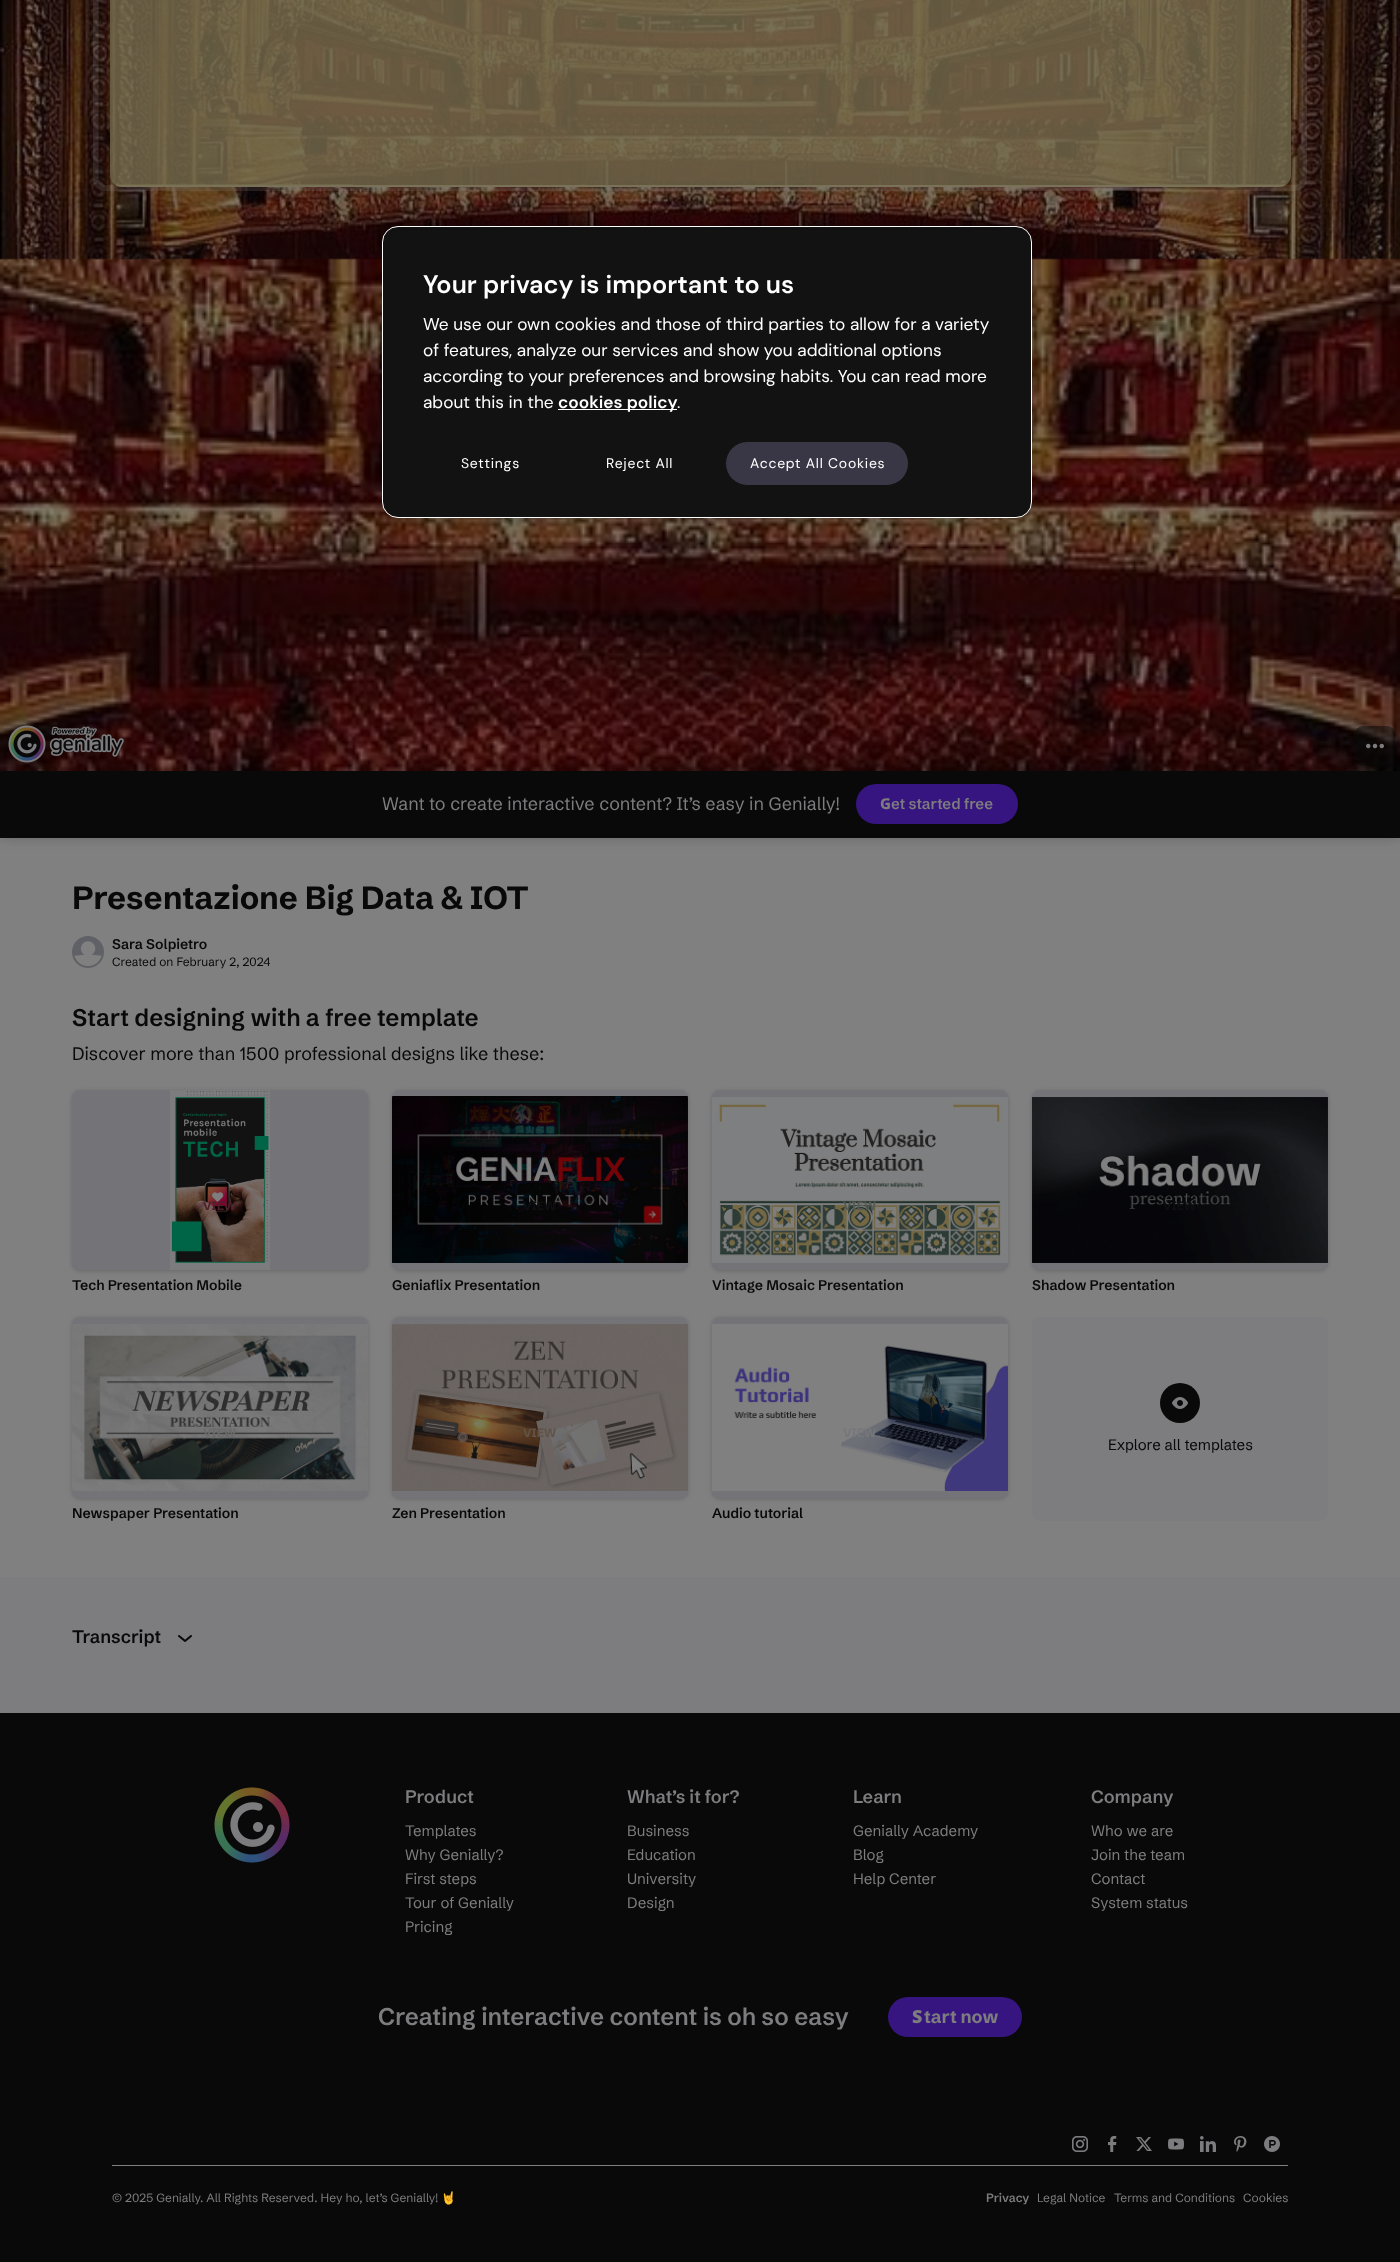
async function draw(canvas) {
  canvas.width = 1400;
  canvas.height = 2262;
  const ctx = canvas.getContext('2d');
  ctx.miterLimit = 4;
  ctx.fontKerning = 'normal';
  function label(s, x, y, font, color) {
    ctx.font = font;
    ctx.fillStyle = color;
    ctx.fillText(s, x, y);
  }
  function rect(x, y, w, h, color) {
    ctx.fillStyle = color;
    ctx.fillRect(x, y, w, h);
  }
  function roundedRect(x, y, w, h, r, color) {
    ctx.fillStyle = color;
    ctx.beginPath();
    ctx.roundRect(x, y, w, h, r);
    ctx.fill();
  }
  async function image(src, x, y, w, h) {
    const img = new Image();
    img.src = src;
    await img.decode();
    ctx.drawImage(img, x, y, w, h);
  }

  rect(0, 0, 1400, 2262, '#808080');
  await image('assets/img5.png', 0, 258, 1400, 513);
  await image('assets/img2.png', 0, 0, 1400, 260);
  ctx.fillStyle = '#00000033';
  ctx.filter = 'blur(9px)';
  ctx.beginPath();
  ctx.roundRect(382, 226, 650, 292, 16);
  ctx.fill();
  ctx.filter = 'none';
  ctx.fillStyle = '#121212';
  ctx.beginPath();
  ctx.roundRect(382.5, 226.5, 649, 291, 15.5);
  ctx.fill();
  ctx.strokeStyle = '#fff';
  ctx.stroke();
  label('Your privacy is important to us', 423, 293, '600 25.25px DM Sans', '#fff');
  label('We use our own cookies and those of third parties to allow for a variety', 423, 330, '17.25px DM Sans', '#fff');
  label('of features, analyze our services and show you additional options', 423, 356, '17.25px DM Sans', '#fff');
  label('according to your preferences and browsing habits. You can read more', 423, 382, '17.25px DM Sans', '#fff');
  label('about this in the', 423, 408, '17.25px DM Sans', '#fff');
  rect(558, 409, 119, 1, '#fff');
  label('cookies policy', 558, 408, '600 17.25px DM Sans', '#fff');
  label('.', 677, 408, '17.25px DM Sans', '#fff');
  ctx.letterSpacing = '0.75px';
  label('Settings', 461, 468, '14px DM Sans', '#fff');
  label('Reject All', 606, 468, '14px DM Sans', '#fff');
  ctx.fillStyle = '#393645';
  ctx.beginPath();
  ctx.roundRect(725.5, 441.5, 183, 44, 22);
  ctx.fill();
  ctx.strokeStyle = '#121212';
  ctx.stroke();
  label('Accept All Cookies', 750, 468, '14px DM Sans', '#fff');
  roundedRect(110, -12, 1181, 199, 12, '#776f4f');
  ctx.beginPath();
  ctx.roundRect(96, -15, 1208, 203, 9);
  ctx.strokeStyle = '#80808033';
  ctx.lineWidth = 6;
  ctx.stroke();
  await image('assets/img1.png', 98, 0, 1204, 185);
  await image('assets/img3.png', 8, 725, 116, 38);
  roundedRect(1355, 726, 40, 40, 8, '#09090980');
  await image('assets/img4.png', 1366, 743, 18, 6);
  ctx.fillStyle = '#0909094d';
  ctx.filter = 'blur(6.5px)';
  ctx.beginPath();
  ctx.rect(0, 769, 1400, 67);
  ctx.fill();
  ctx.filter = 'none';
  rect(0, 771, 1400, 67, '#090909');
  ctx.letterSpacing = '0px';
  label('Want to create interactive content? It’s easy in Genially!', 382, 810, '18px Schibsted Grotesk', '#7d7c7e');
  roundedRect(856, 784, 162, 40, 20, '#361580');
  label('G', 880, 809, '800 15px Noto Sans', '#7d7c7e');
  label('et started free', 891, 809, '600 15px Schibsted Grotesk', '#7d7c7e');
  label('Presentazione Big Data & IOT', 72, 909, 'bold 32px Schibsted Grotesk', '#090909');
  await image('assets/img6.png', 72, 936, 32, 32);
  label('Sara Solpietro', 112, 949, '600 14px Schibsted Grotesk', '#090909');
  label('Created on February 2, 2024', 112, 966, '12px Schibsted Grotesk', '#090909');
  label('Start designing with a free template', 72, 1026, '600 24px Schibsted Grotesk', '#090909');
  label('Discover more than 1500 professional designs like these:', 72, 1060, '18px Schibsted Grotesk', '#090909');
  ctx.fillStyle = '#09090933';
  ctx.filter = 'blur(2px)';
  ctx.beginPath();
  ctx.roundRect(72, 1091, 296, 180, 8);
  ctx.fill();
  ctx.filter = 'none';
  roundedRect(72, 1090, 296, 180, 8, '#747378');
  await image('assets/img7.png', 170, 1090, 100, 180);
  label('VIEW', 203, 1210, 'bold 12px Schibsted Grotesk', '#50202a');
  label('Tech Presentation Mobile', 72, 1290, '600 14px Schibsted Grotesk', '#090909');
  ctx.fillStyle = '#09090933';
  ctx.filter = 'blur(2px)';
  ctx.beginPath();
  ctx.roundRect(392, 1091, 296, 180, 8);
  ctx.fill();
  ctx.filter = 'none';
  roundedRect(392, 1090, 296, 180, 8, '#747378');
  await image('assets/img8.png', 392, 1096, 296, 167);
  label('VIEW', 523, 1210, 'bold 12px Schibsted Grotesk', '#0f0f11');
  label('Geniaflix Presentation', 392, 1290, '600 14px Schibsted Grotesk', '#090909');
  ctx.fillStyle = '#09090933';
  ctx.filter = 'blur(2px)';
  ctx.beginPath();
  ctx.roundRect(712, 1091, 296, 180, 8);
  ctx.fill();
  ctx.filter = 'none';
  roundedRect(712, 1090, 296, 180, 8, '#747378');
  await image('assets/img9.png', 712, 1097, 296, 166);
  label('VIEW', 843, 1210, 'bold 12px Schibsted Grotesk', '#555b54');
  label('Vintage Mosaic Presentation', 712, 1290, '600 14px Schibsted Grotesk', '#090909');
  ctx.fillStyle = '#09090933';
  ctx.filter = 'blur(2px)';
  ctx.beginPath();
  ctx.roundRect(1032, 1091, 296, 180, 8);
  ctx.fill();
  ctx.filter = 'none';
  roundedRect(1032, 1090, 296, 180, 8, '#747378');
  await image('assets/img10.png', 1032, 1097, 296, 166);
  label('VIEW', 1163, 1210, 'bold 12px Schibsted Grotesk', '#0f0f11');
  label('Shadow Presentation', 1032, 1290, '600 14px Schibsted Grotesk', '#090909');
  ctx.fillStyle = '#09090933';
  ctx.filter = 'blur(2px)';
  ctx.beginPath();
  ctx.roundRect(72, 1318, 296, 181, 8);
  ctx.fill();
  ctx.filter = 'none';
  roundedRect(72, 1317, 296, 181, 8, '#747378');
  await image('assets/img11.png', 72, 1324, 296, 167);
  label('VIEW', 203, 1437, 'bold 12px Schibsted Grotesk', '#6b6b6b');
  label('Newspaper Presentation', 72, 1518, '600 14px Schibsted Grotesk', '#090909');
  ctx.fillStyle = '#09090933';
  ctx.filter = 'blur(2px)';
  ctx.beginPath();
  ctx.roundRect(392, 1318, 296, 181, 8);
  ctx.fill();
  ctx.filter = 'none';
  roundedRect(392, 1317, 296, 181, 8, '#747378');
  await image('assets/img12.png', 392, 1324, 296, 167);
  label('VIEW', 523, 1437, 'bold 12px Schibsted Grotesk', '#615347');
  label('Zen Presentation', 392, 1518, '600 14px Schibsted Grotesk', '#090909');
  ctx.fillStyle = '#09090933';
  ctx.filter = 'blur(2px)';
  ctx.beginPath();
  ctx.roundRect(712, 1318, 296, 181, 8);
  ctx.fill();
  ctx.filter = 'none';
  roundedRect(712, 1317, 296, 181, 8, '#747378');
  await image('assets/img13.png', 712, 1324, 296, 167);
  label('VIEW', 843, 1437, 'bold 12px Schibsted Grotesk', '#76777b');
  label('Audio tutorial', 712, 1518, '600 14px Schibsted Grotesk', '#090909');
  roundedRect(1032, 1317, 296, 204, 8, '#7d7c7e');
  ctx.fillStyle = '#090909';
  ctx.beginPath();
  ctx.arc(1180, 1403, 20, 0, 2 * Math.PI);
  ctx.fill();
  await image('assets/img14.png', 1172, 1397, 16, 12);
  label('Explore all templates', 1108, 1450, '15px Schibsted Grotesk', '#090909');
  rect(0, 1577, 1400, 136, '#7d7c7e');
  label('Transcript', 72, 1643, '600 18px Schibsted Grotesk', '#090909');
  await image('assets/img15.png', 178, 1635, 14, 7);
  rect(0, 1713, 1400, 549, '#090909');
  await image('assets/img16.png', 214, 1787, 76, 76);
  label('Product', 405, 1803, '600 18px Schibsted Grotesk', '#7d7c7e');
  label('Templates', 405, 1836, '15px Schibsted Grotesk', '#7d7c7e');
  label('Why Genially?', 405, 1860, '15px Schibsted Grotesk', '#7d7c7e');
  label('First steps', 405, 1884, '15px Schibsted Grotesk', '#7d7c7e');
  label('Tour of Genially', 405, 1908, '15px Schibsted Grotesk', '#7d7c7e');
  label('Pricing', 405, 1932, '15px Schibsted Grotesk', '#7d7c7e');
  label('What’s it for?', 627, 1803, '600 18px Schibsted Grotesk', '#7d7c7e');
  label('Business', 627, 1836, '15px Schibsted Grotesk', '#7d7c7e');
  label('Education', 627, 1860, '15px Schibsted Grotesk', '#7d7c7e');
  label('University', 627, 1884, '15px Schibsted Grotesk', '#7d7c7e');
  label('Design', 627, 1908, '15px Schibsted Grotesk', '#7d7c7e');
  label('Learn', 853, 1803, '600 18px Schibsted Grotesk', '#7d7c7e');
  label('Genially Academy', 853, 1836, '15px Schibsted Grotesk', '#7d7c7e');
  label('Blog', 853, 1860, '15px Schibsted Grotesk', '#7d7c7e');
  label('Help Center', 853, 1884, '15px Schibsted Grotesk', '#7d7c7e');
  label('Company', 1091, 1803, '600 18px Schibsted Grotesk', '#7d7c7e');
  label('Who we are', 1091, 1836, '15px Schibsted Grotesk', '#7d7c7e');
  label('Join the team', 1091, 1860, '15px Schibsted Grotesk', '#7d7c7e');
  label('Contact', 1091, 1884, '15px Schibsted Grotesk', '#7d7c7e');
  label('System status', 1091, 1908, '15px Schibsted Grotesk', '#7d7c7e');
  label('Creating interactive content is oh so easy', 378, 2025, '600 24px Schibsted Grotesk', '#7d7c7e');
  roundedRect(888, 1997, 134, 40, 20, '#361580');
  label('S', 912, 2023, '900 18px Noto Sans', '#7d7c7e');
  label('tart now', 924, 2023, 'bold 18px Schibsted Grotesk', '#7d7c7e');
  await image('assets/img17.png', 1072, 2136, 16, 16);
  await image('assets/img18.png', 1108, 2136, 9, 16);
  await image('assets/img19.png', 1136, 2137, 16, 14);
  await image('assets/img20.png', 1168, 2138, 16, 12);
  await image('assets/img21.png', 1200, 2136, 16, 16);
  await image('assets/img22.png', 1234, 2136, 13, 16);
  await image('assets/img23.png', 1264, 2136, 16, 16);
  rect(112, 2165, 1176, 1, '#808080');
  label('© 2025 Genially. All Rights Reserved. Hey ho, let’s Genially!', 112, 2202, '12px Schibsted Grotesk', '#7d7c7e');
  label('🤘', 441, 2202, '12px Noto Color Emoji', '#7d7c7e');
  label('Privacy', 986, 2202, '600 12px Schibsted Grotesk', '#7d7c7e');
  label('Legal Notice', 1037, 2202, '12px Schibsted Grotesk', '#7d7c7e');
  label('Terms and Conditions', 1114, 2202, '12px Schibsted Grotesk', '#7d7c7e');
  label('Cookies', 1243, 2202, '12px Schibsted Grotesk', '#7d7c7e');
}

draw(document.querySelector('canvas'));
